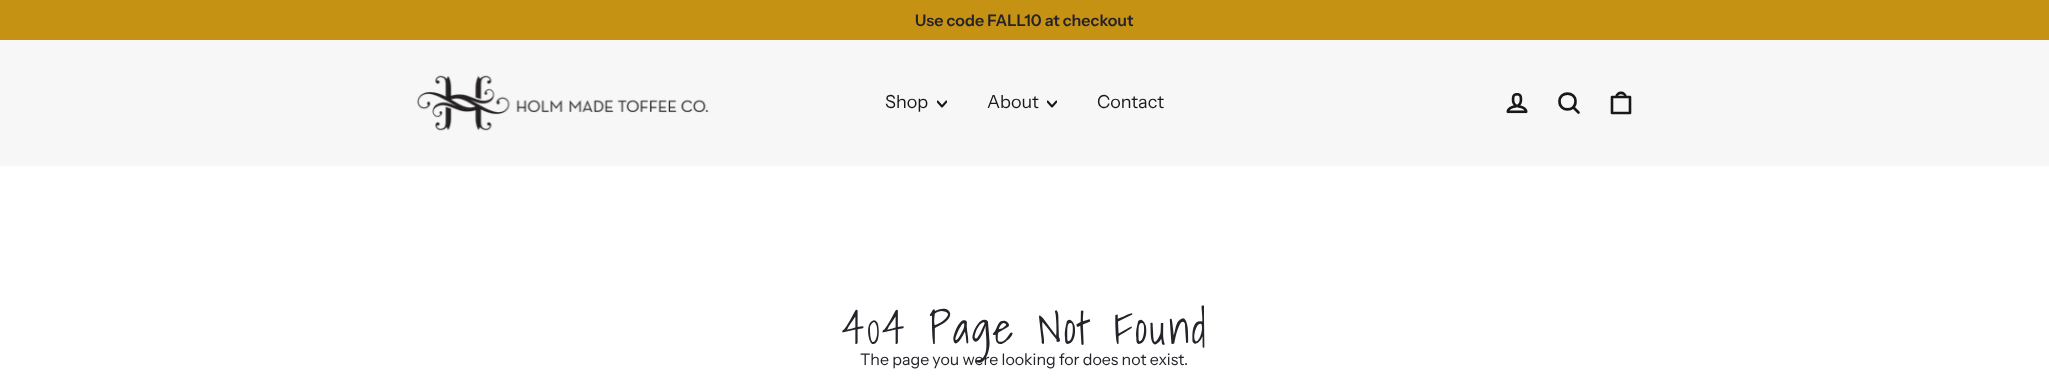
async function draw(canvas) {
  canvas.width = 2049;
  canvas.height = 377;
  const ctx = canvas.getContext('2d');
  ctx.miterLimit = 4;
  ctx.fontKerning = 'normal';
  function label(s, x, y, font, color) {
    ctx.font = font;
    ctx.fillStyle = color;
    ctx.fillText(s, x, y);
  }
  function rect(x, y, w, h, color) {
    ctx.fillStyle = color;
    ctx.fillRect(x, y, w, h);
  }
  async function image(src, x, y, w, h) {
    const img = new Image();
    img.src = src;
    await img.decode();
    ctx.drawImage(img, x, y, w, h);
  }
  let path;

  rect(0, 0, 2049, 377, '#fff');
  rect(0, 0, 2049, 40, '#c69214');
  label('Use code FALL10 at checkout', 915, 26, '600 16px Instrument Sans', '#252229');
  rect(0, 40, 2049, 126, '#f7f7f7');
  await image('assets/img1.png', 416, 75, 293, 56);
  label('Shop', 885, 108, '18px Instrument Sans', '#181818');
  ctx.save();
  ctx.beginPath();
  ctx.rect(937, 99, 10, 10);
  ctx.clip();
  path = new Path2D('M937.5 101.5L942 106.5L946.5 101.5');
  ctx.strokeStyle = '#181818';
  ctx.lineWidth = 2.1;
  ctx.lineCap = 'round';
  ctx.lineJoin = 'round';
  ctx.stroke(path);
  ctx.restore();
  label('About', 987, 108, '18px Instrument Sans', '#181818');
  ctx.save();
  ctx.beginPath();
  ctx.rect(1047, 99, 10, 10);
  ctx.clip();
  path = new Path2D('M1047.5 101.5L1052 106.5L1056.5 101.5');
  ctx.strokeStyle = '#181818';
  ctx.lineWidth = 2.1;
  ctx.lineCap = 'round';
  ctx.lineJoin = 'round';
  ctx.stroke(path);
  ctx.restore();
  label('Contact', 1097, 108, '18px Instrument Sans', '#181818');
  await image('assets/img2.png', 1506, 93, 22, 21);
  path = new Path2D('M1575.5 101.5C1575.5 112 1559.5 112 1559.5 101.5C1559.5 91 1575.5 91 1575.5 101.5ZM1578.5 112.5L1573.5 107.5');
  ctx.strokeStyle = '#181818';
  ctx.lineWidth = 2.6;
  ctx.lineCap = 'round';
  ctx.lineJoin = 'round';
  ctx.stroke(path);
  path = new Path2D('M1612 97H1630V113H1612ZM1616.5 97C1616.5 91.5 1625.5 91.5 1625.5 97');
  ctx.stroke(path);
  ctx.letterSpacing = '2.25px';
  label('404 Page Not Found', 842, 344, '44px Shadows Into Light', '#252229');
  ctx.letterSpacing = '0px';
  label('The page you were looking for does not exist.', 860, 365, '16px Instrument Sans', '#252229');
}

draw(document.querySelector('canvas'));
